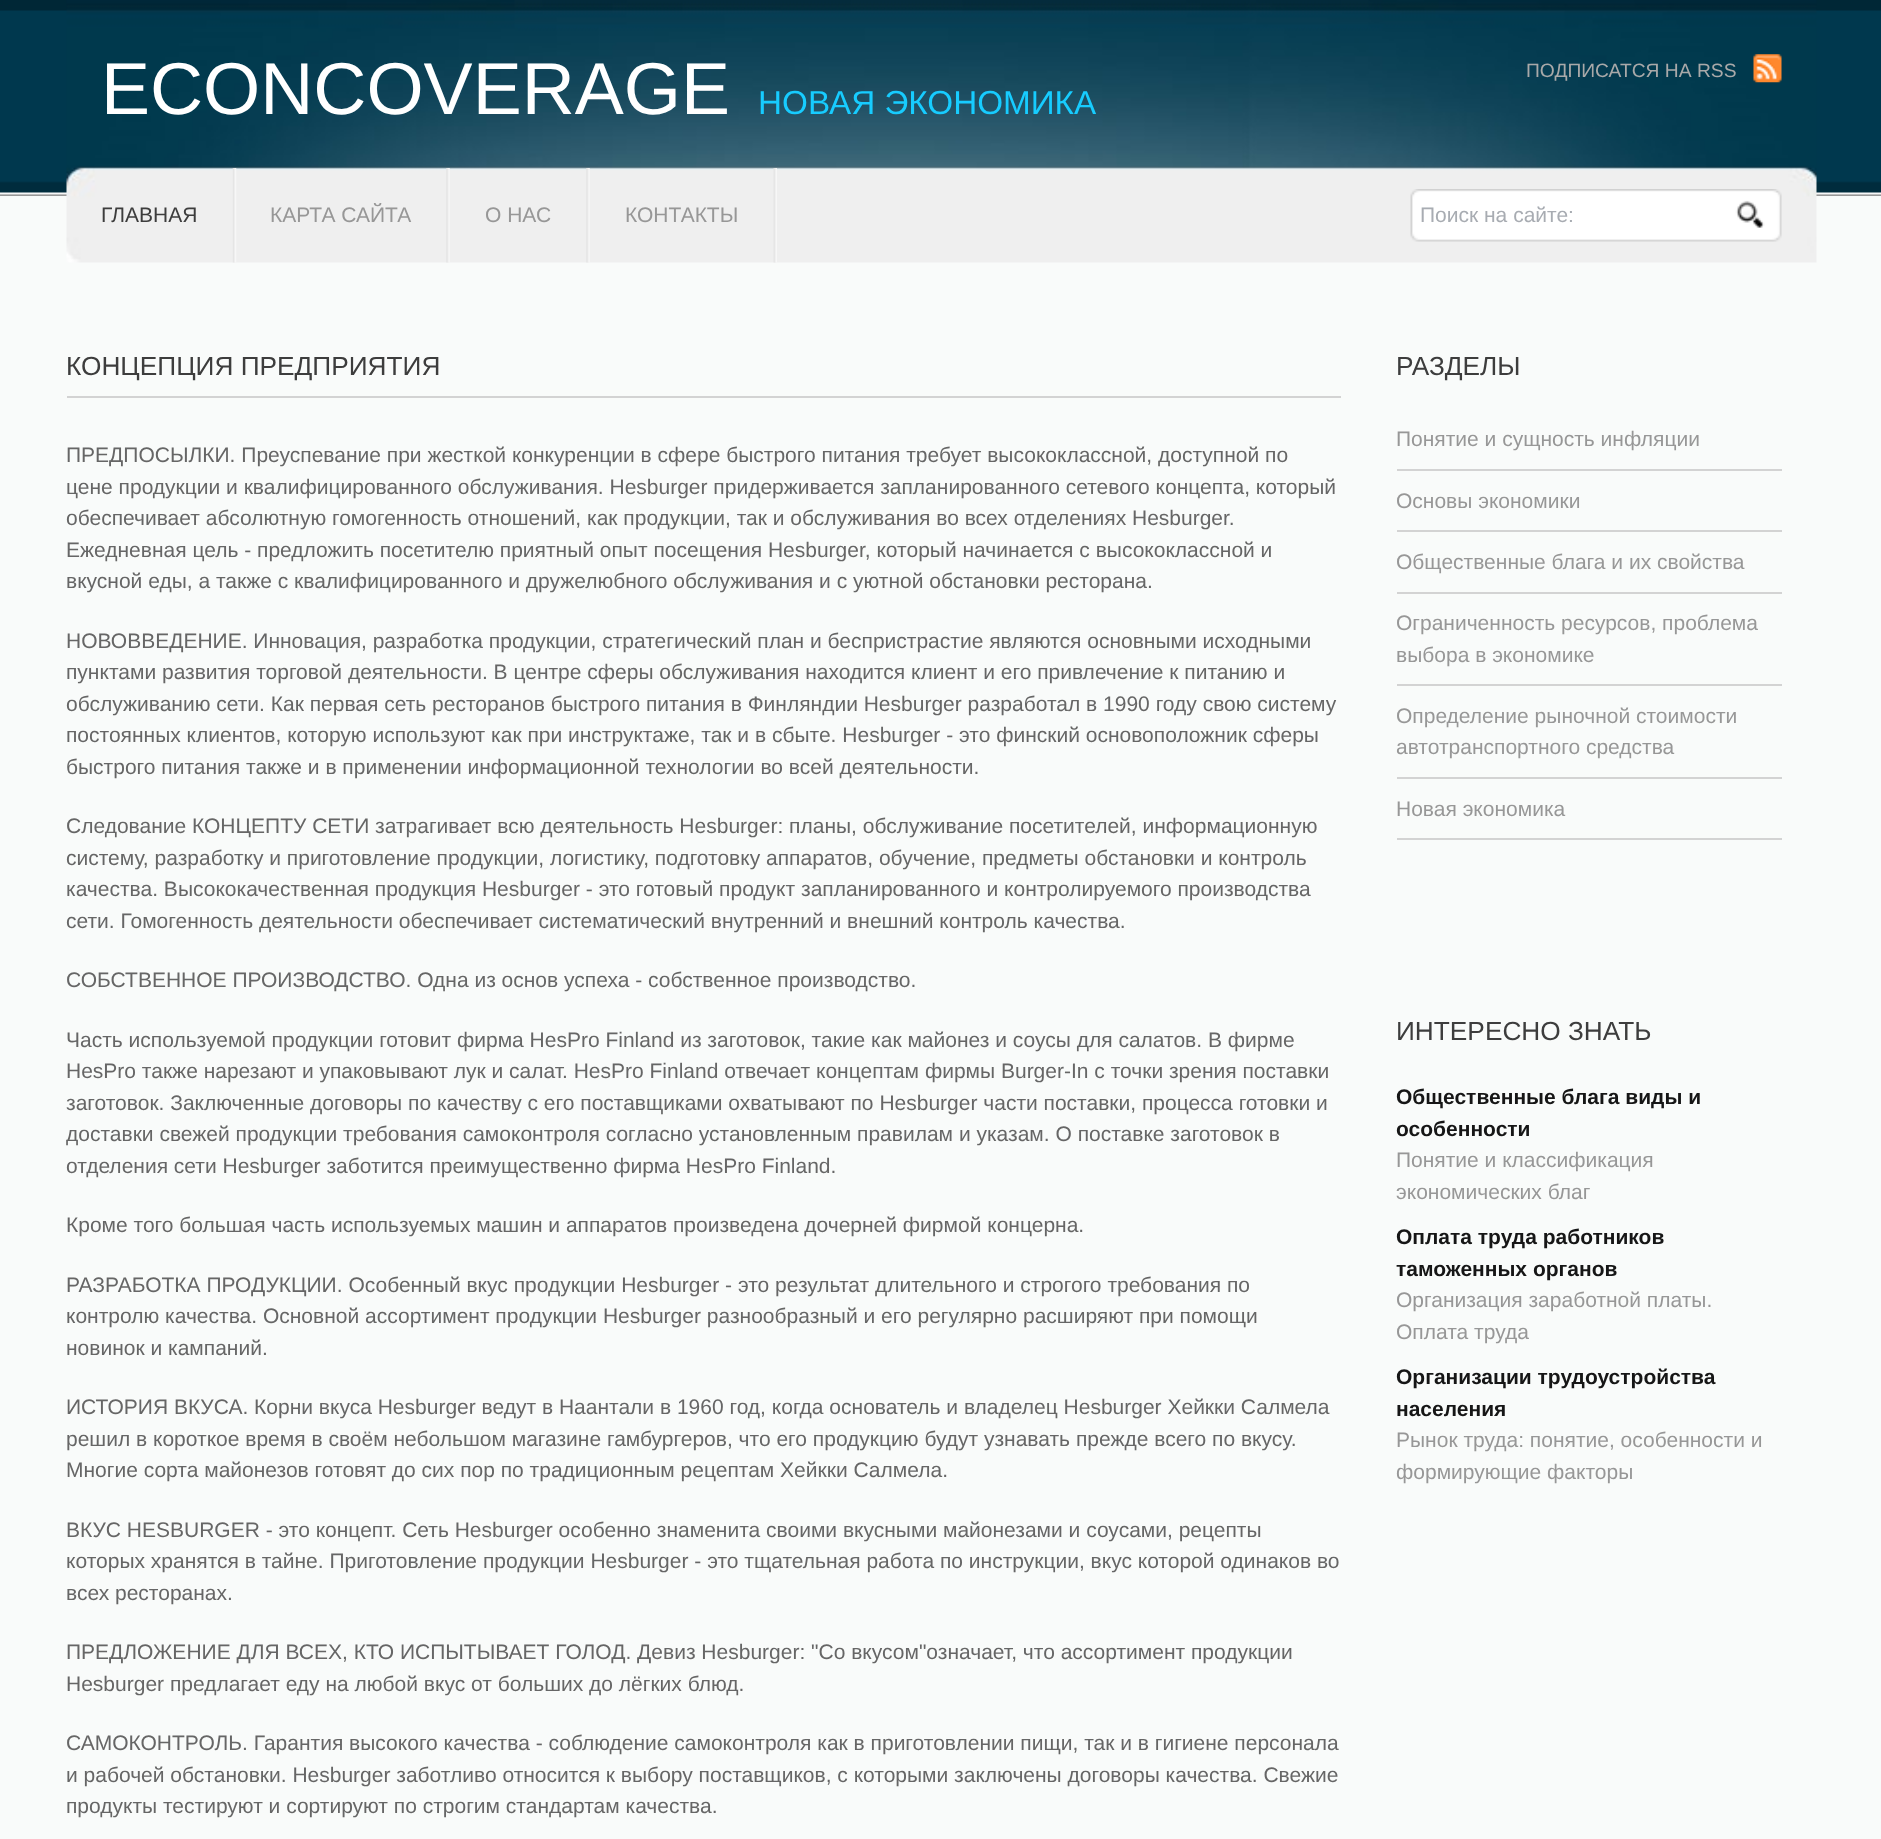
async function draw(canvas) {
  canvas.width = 1881;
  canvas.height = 1839;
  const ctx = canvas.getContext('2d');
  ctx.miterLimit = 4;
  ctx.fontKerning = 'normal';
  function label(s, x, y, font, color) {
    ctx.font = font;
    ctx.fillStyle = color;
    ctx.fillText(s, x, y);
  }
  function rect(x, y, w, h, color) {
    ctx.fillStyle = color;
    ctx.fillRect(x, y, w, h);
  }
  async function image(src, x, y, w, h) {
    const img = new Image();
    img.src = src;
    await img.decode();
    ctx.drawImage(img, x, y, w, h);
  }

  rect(0, 0, 1881, 1839, '#f9fbfa');
  await image('assets/img1.png', 0, 0, 1881, 196);
  await image('assets/img2.png', 66, 0, 1751, 263);
  label('ECONCOVERAGE', 101, 114, '73.5px Liberation Sans', '#fff');
  label('НОВАЯ ЭКОНОМИКА', 758, 114, '33.25px Liberation Sans', '#17ccff');
  label('ПОДПИСАТСЯ НА RSS', 1526, 77, '19.25px Liberation Sans', '#a9a9a9');
  await image('assets/img3.png', 1753, 54, 29, 29);
  await image('assets/img4.png', 232, 168, 5, 95);
  label('ГЛАВНАЯ', 101, 222, '21px Liberation Sans', '#3d3d3d');
  await image('assets/img5.png', 446, 168, 4, 95);
  label('КАРТА САЙТА', 270, 222, '21px Liberation Sans', '#979797');
  await image('assets/img6.png', 586, 168, 4, 95);
  label('О НАС', 485, 222, '21px Liberation Sans', '#979797');
  await image('assets/img7.png', 773, 168, 4, 95);
  label('КОНТАКТЫ', 625, 222, '21px Liberation Sans', '#979797');
  await image('assets/img8.png', 1410, 189, 319, 53);
  label('Поиск на сайте:', 1420, 222, '21px Liberation Sans', '#a8acb2');
  await image('assets/img9.png', 1729, 189, 53, 53);
  rect(67, 396, 1274, 2, '#d3d3d3');
  label('КОНЦЕПЦИЯ ПРЕДПРИЯТИЯ', 66, 375, '26.25px Liberation Sans', '#3d3d3d');
  label('ПРЕДПОСЫЛКИ. Преуспевание при жесткой конкуренции в сфере быстрого питания требует высококлассной, доступной по', 66, 462, '21px Liberation Sans', '#666');
  label('цене продукции и квалифицированного обслуживания. Hesburger придерживается запланированного сетевого концепта, который', 66, 494, '21px Liberation Sans', '#666');
  label('обеспечивает абсолютную гомогенность отношений, как продукции, так и обслуживания во всех отделениях Hesburger.', 66, 525, '21px Liberation Sans', '#666');
  label('Ежедневная цель - предложить посетителю приятный опыт посещения Hesburger, который начинается с высококлассной и', 66, 557, '21px Liberation Sans', '#666');
  label('вкусной еды, а также с квалифицированного и дружелюбного обслуживания и с уютной обстановки ресторана.', 66, 588, '21px Liberation Sans', '#666');
  label('НОВОВВЕДЕНИЕ. Инновация, разработка продукции, стратегический план и беспристрастие являются основными исходными', 66, 648, '21px Liberation Sans', '#666');
  label('пунктами развития торговой деятельности. В центре сферы обслуживания находится клиент и его привлечение к питанию и', 66, 679, '21px Liberation Sans', '#666');
  label('обслуживанию сети. Как первая сеть ресторанов быстрого питания в Финляндии Hesburger разработал в 1990 году свою систему', 66, 711, '21px Liberation Sans', '#666');
  label('постоянных клиентов, которую используют как при инструктаже, так и в сбыте. Hesburger - это финский основоположник сферы', 66, 742, '21px Liberation Sans', '#666');
  label('быстрого питания также и в применении информационной технологии во всей деятельности.', 66, 774, '21px Liberation Sans', '#666');
  label('Следование КОНЦЕПТУ СЕТИ затрагивает всю деятельность Hesburger: планы, обслуживание посетителей, информационную', 66, 833, '21px Liberation Sans', '#666');
  label('систему, разработку и приготовление продукции, логистику, подготовку аппаратов, обучение, предметы обстановки и контроль', 66, 865, '21px Liberation Sans', '#666');
  label('качества. Высококачественная продукция Hesburger - это готовый продукт запланированного и контролируемого производства', 66, 896, '21px Liberation Sans', '#666');
  label('сети. Гомогенность деятельности обеспечивает систематический внутренний и внешний контроль качества.', 66, 928, '21px Liberation Sans', '#666');
  label('СОБСТВЕННОЕ ПРОИЗВОДСТВО. Одна из основ успеха - собственное производство.', 66, 987, '21px Liberation Sans', '#666');
  label('Часть используемой продукции готовит фирма HesPro Finland из заготовок, такие как майонез и соусы для салатов. В фирме', 66, 1047, '21px Liberation Sans', '#666');
  label('HesPro также нарезают и упаковывают лук и салат. HesPro Finland отвечает концептам фирмы Burger-In с точки зрения поставки', 66, 1078, '21px Liberation Sans', '#666');
  label('заготовок. Заключенные договоры по качеству с его поставщиками охватывают по Hesburger части поставки, процесса готовки и', 66, 1110, '21px Liberation Sans', '#666');
  label('доставки свежей продукции требования самоконтроля согласно установленным правилам и указам. О поставке заготовок в', 66, 1141, '21px Liberation Sans', '#666');
  label('отделения сети Hesburger заботится преимущественно фирма HesPro Finland.', 66, 1173, '21px Liberation Sans', '#666');
  label('Кроме того большая часть используемых машин и аппаратов произведена дочерней фирмой концерна.', 66, 1232, '21px Liberation Sans', '#666');
  label('РАЗРАБОТКА ПРОДУКЦИИ. Особенный вкус продукции Hesburger - это результат длительного и строгого требования по', 66, 1292, '21px Liberation Sans', '#666');
  label('контролю качества. Основной ассортимент продукции Hesburger разнообразный и его регулярно расширяют при помощи', 66, 1323, '21px Liberation Sans', '#666');
  label('новинок и кампаний.', 66, 1355, '21px Liberation Sans', '#666');
  label('ИСТОРИЯ ВКУСА. Корни вкуса Hesburger ведут в Наантали в 1960 год, когда основатель и владелец Hesburger Хейкки Салмела', 66, 1414, '21px Liberation Sans', '#666');
  label('решил в короткое время в своём небольшом магазине гамбургеров, что его продукцию будут узнавать прежде всего по вкусу.', 66, 1446, '21px Liberation Sans', '#666');
  label('Многие сорта майонезов готовят до сих пор по традиционным рецептам Хейкки Салмела.', 66, 1477, '21px Liberation Sans', '#666');
  label('ВКУС HESBURGER - это концепт. Сеть Hesburger особенно знаменита своими вкусными майонезами и соусами, рецепты', 66, 1537, '21px Liberation Sans', '#666');
  label('которых хранятся в тайне. Приготовление продукции Hesburger - это тщательная работа по инструкции, вкус которой одинаков во', 66, 1568, '21px Liberation Sans', '#666');
  label('всех ресторанах.', 66, 1600, '21px Liberation Sans', '#666');
  label('ПРЕДЛОЖЕНИЕ ДЛЯ ВСЕХ, КТО ИСПЫТЫВАЕТ ГОЛОД. Девиз Hesburger: "Со вкусом"означает, что ассортимент продукции', 66, 1659, '21px Liberation Sans', '#666');
  label('Hesburger предлагает еду на любой вкус от больших до лёгких блюд.', 66, 1691, '21px Liberation Sans', '#666');
  label('САМОКОНТРОЛЬ. Гарантия высокого качества - соблюдение самоконтроля как в приготовлении пищи, так и в гигиене персонала', 66, 1750, '21px Liberation Sans', '#666');
  label('и рабочей обстановки. Hesburger заботливо относится к выбору поставщиков, с которыми заключены договоры качества. Свежие', 66, 1782, '21px Liberation Sans', '#666');
  label('продукты тестируют и сортируют по строгим стандартам качества.', 66, 1813, '21px Liberation Sans', '#666');
  label('РАЗДЕЛЫ', 1396, 375, '26.25px Liberation Sans', '#3d3d3d');
  rect(1397, 469, 385, 2, '#d3d3d3');
  label('Понятие и сущность инфляции', 1396, 446, '21px Liberation Sans', '#979797');
  rect(1397, 530, 385, 2, '#d3d3d3');
  label('Основы экономики', 1396, 508, '21px Liberation Sans', '#979797');
  rect(1397, 592, 385, 2, '#d3d3d3');
  label('Общественные блага и их свойства', 1396, 569, '21px Liberation Sans', '#979797');
  rect(1397, 684, 385, 2, '#d3d3d3');
  label('Ограниченность ресурсов, проблема', 1396, 630, '21px Liberation Sans', '#979797');
  label('выбора в экономике', 1396, 662, '21px Liberation Sans', '#979797');
  rect(1397, 777, 385, 2, '#d3d3d3');
  label('Определение рыночной стоимости', 1396, 723, '21px Liberation Sans', '#979797');
  label('автотранспортного средства', 1396, 754, '21px Liberation Sans', '#979797');
  rect(1397, 838, 385, 2, '#d3d3d3');
  label('Новая экономика', 1396, 816, '21px Liberation Sans', '#979797');
  label('ИНТЕРЕСНО ЗНАТЬ', 1396, 1040, '26.25px Liberation Sans', '#3d3d3d');
  label('Общественные блага виды и', 1396, 1104, 'bold 21px Liberation Sans', '#161616');
  label('особенности', 1396, 1136, 'bold 21px Liberation Sans', '#161616');
  label('Понятие и классификация', 1396, 1167, '21px Liberation Sans', '#979797');
  label('экономических благ', 1396, 1199, '21px Liberation Sans', '#979797');
  label('Оплата труда работников', 1396, 1244, 'bold 21px Liberation Sans', '#161616');
  label('таможенных органов', 1396, 1276, 'bold 21px Liberation Sans', '#161616');
  label('Организация заработной платы.', 1396, 1307, '21px Liberation Sans', '#979797');
  label('Оплата труда', 1396, 1339, '21px Liberation Sans', '#979797');
  label('Организации трудоустройства', 1396, 1384, 'bold 21px Liberation Sans', '#161616');
  label('населения', 1396, 1416, 'bold 21px Liberation Sans', '#161616');
  label('Рынок труда: понятие, особенности и', 1396, 1447, '21px Liberation Sans', '#979797');
  label('формирующие факторы', 1396, 1479, '21px Liberation Sans', '#979797');
}

draw(document.querySelector('canvas'));
